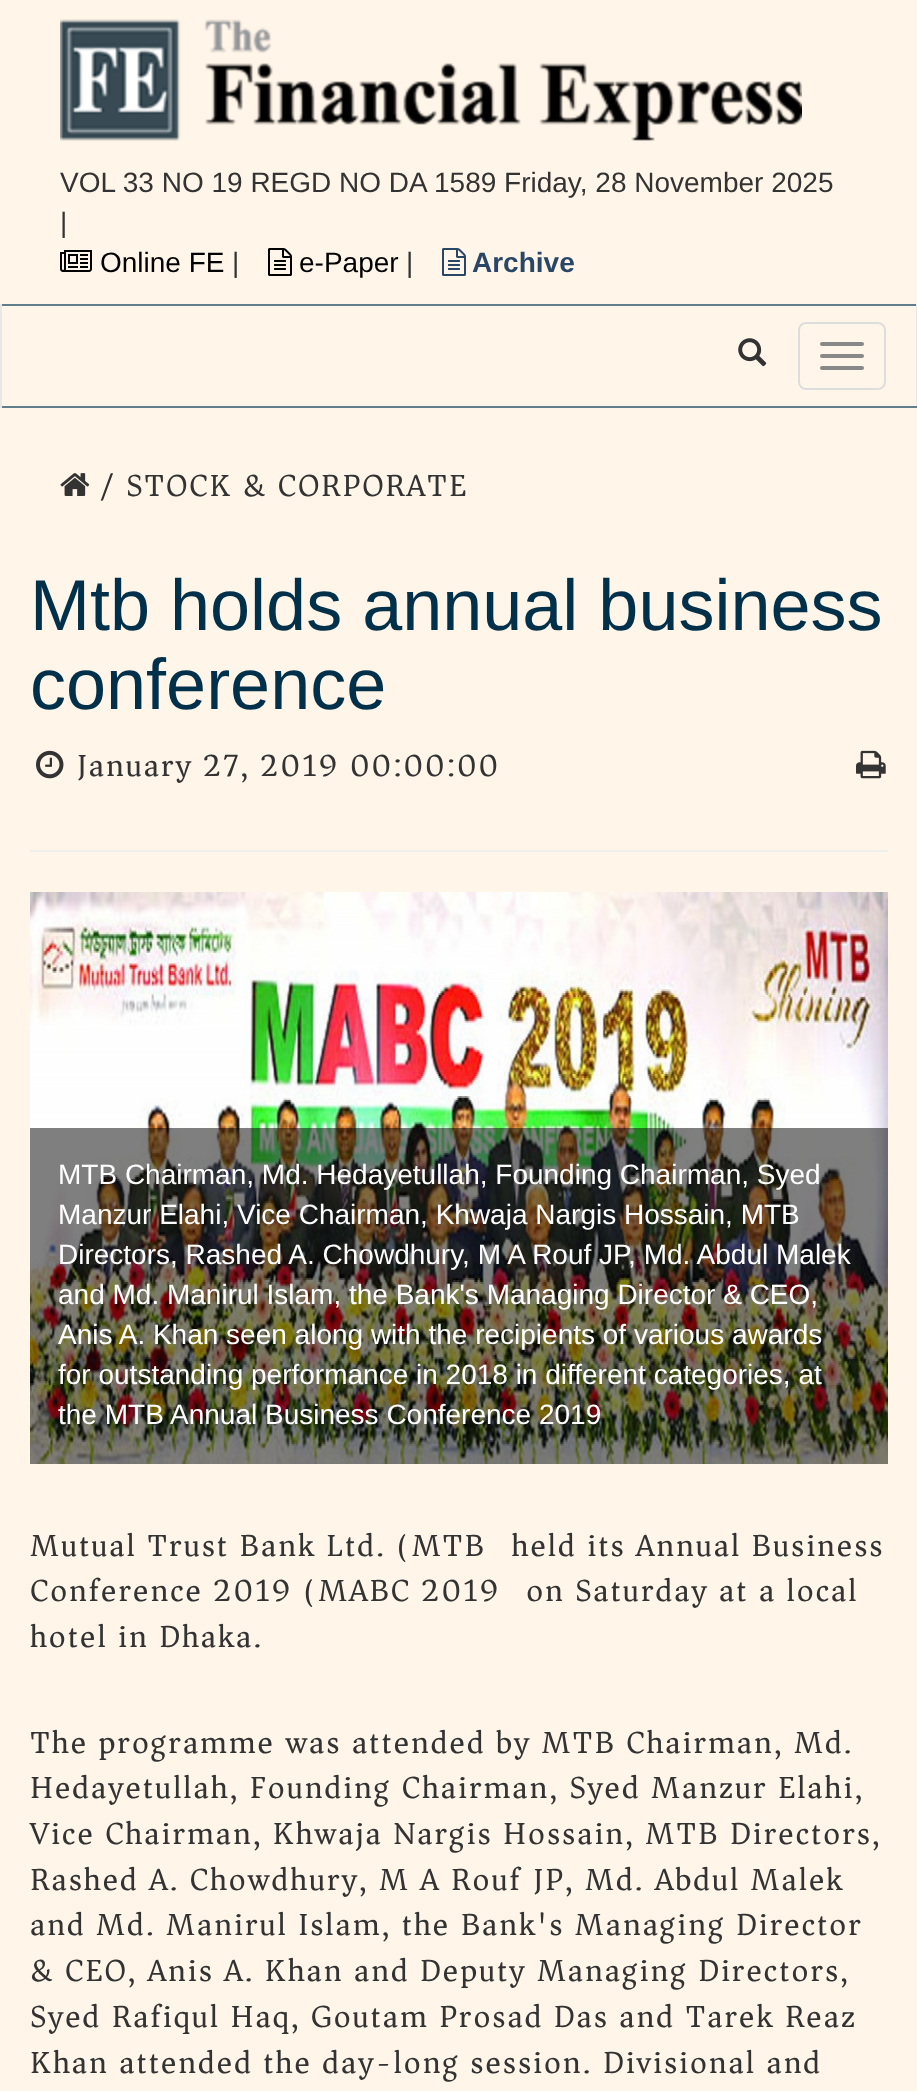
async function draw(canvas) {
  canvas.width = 917;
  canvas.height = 2091;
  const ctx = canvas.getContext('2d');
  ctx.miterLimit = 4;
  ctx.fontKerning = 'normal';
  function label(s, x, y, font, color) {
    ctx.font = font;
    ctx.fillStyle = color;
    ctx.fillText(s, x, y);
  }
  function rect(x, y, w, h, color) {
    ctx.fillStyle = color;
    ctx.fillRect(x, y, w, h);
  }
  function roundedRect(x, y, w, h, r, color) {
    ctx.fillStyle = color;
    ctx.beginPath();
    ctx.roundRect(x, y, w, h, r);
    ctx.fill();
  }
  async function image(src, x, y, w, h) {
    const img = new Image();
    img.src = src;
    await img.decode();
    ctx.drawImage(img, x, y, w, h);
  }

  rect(0, 0, 917, 2091, '#fff5e8');
  await image('assets/img1.png', 60, 19, 742, 122);
  label('VOL 33 NO 19 REGD NO DA 1589 Friday, 28 November 2025', 60, 192, '28px Liberation Sans', '#333');
  label('|', 60, 232, '28px Liberation Sans', '#333');
  await image('assets/img2.png', 60, 250, 32, 22);
  label('Online FE', 100, 272, '28px Liberation Sans', '#000');
  label('|', 232, 272, '28px Liberation Sans', '#333');
  await image('assets/img3.png', 268, 248, 24, 28);
  label('e-Paper', 299, 272, '28px Liberation Sans', '#000');
  label('|', 406, 272, '28px Liberation Sans', '#333');
  await image('assets/img4.png', 442, 248, 24, 28);
  label('Archive', 472, 272, 'bold 28px Liberation Sans', '#294666');
  rect(0, 304, 917, 2, '#607d8b');
  rect(916, 304, 1, 104, '#e7e7e7');
  rect(0, 406, 917, 2, '#607d8b');
  rect(0, 304, 2, 104, '#e7e7e7');
  await image('assets/img5.png', 738, 338, 29, 29);
  ctx.beginPath();
  ctx.roundRect(799, 323, 86, 66, 7);
  ctx.strokeStyle = '#ddd';
  ctx.lineWidth = 2;
  ctx.stroke();
  roundedRect(820, 342, 44, 4, 2, '#888');
  roundedRect(820, 354, 44, 4, 2, '#888');
  roundedRect(820, 366, 44, 4, 2, '#888');
  await image('assets/img6.png', 60, 473, 30, 23);
  ctx.letterSpacing = '2px';
  label('/ STOCK & CORPORATE', 100, 496, '32px Asar', '#333');
  ctx.letterSpacing = '0px';
  label('Mtb holds annual business', 30, 630, '72px Liberation Sans', '#00304a');
  label('conference', 30, 709, '72px Liberation Sans', '#00304a');
  await image('assets/img7.png', 36, 750, 28, 29);
  ctx.letterSpacing = '2px';
  label('January 27, 2019 00:00:00', 76, 776, '32px Asar', '#333');
  await image('assets/img8.png', 856, 750, 30, 29);
  rect(30, 850, 858, 2, '#eee');
  await image('assets/img9.png', 30, 892, 858, 572);
  rect(30, 1128, 858, 336, '#00000080');
  ctx.letterSpacing = '0px';
  label('MTB Chairman, Md. Hedayetullah, Founding Chairman, Syed', 58, 1184, '28px Liberation Sans', '#fff');
  label('Manzur Elahi, Vice Chairman, Khwaja Nargis Hossain, MTB', 58, 1224, '28px Liberation Sans', '#fff');
  label('Directors, Rashed A. Chowdhury, M A Rouf JP, Md. Abdul Malek', 58, 1264, '28px Liberation Sans', '#fff');
  label('and Md. Manirul Islam, the Bank\'s Managing Director & CEO,', 58, 1304, '28px Liberation Sans', '#fff');
  label('Anis A. Khan seen along with the recipients of various awards', 58, 1344, '28px Liberation Sans', '#fff');
  label('for outstanding performance in 2018 in different categories, at', 58, 1384, '28px Liberation Sans', '#fff');
  label('the MTB Annual Business Conference 2019', 58, 1424, '28px Liberation Sans', '#fff');
  ctx.letterSpacing = '2px';
  label('Mutual Trust Bank Ltd. (MTB) held its Annual Business', 30, 1556, '32px Asar', '#333');
  label('Conference 2019 (MABC 2019) on Saturday at a local', 30, 1601, '32px Asar', '#333');
  label('hotel in Dhaka.', 30, 1647, '32px Asar', '#333');
  label('The programme was attended by MTB Chairman, Md.', 30, 1753, '32px Asar', '#333');
  label('Hedayetullah, Founding Chairman, Syed Manzur Elahi,', 30, 1798, '32px Asar', '#333');
  label('Vice Chairman, Khwaja Nargis Hossain, MTB Directors,', 30, 1844, '32px Asar', '#333');
  label('Rashed A. Chowdhury, M A Rouf JP, Md. Abdul Malek', 30, 1890, '32px Asar', '#333');
  label('and Md. Manirul Islam, the Bank\'s Managing Director', 30, 1935, '32px Asar', '#333');
  label('& CEO, Anis A. Khan and Deputy Managing Directors,', 30, 1981, '32px Asar', '#333');
  label('Syed Rafiqul Haq, Goutam Prosad Das and Tarek Reaz', 30, 2027, '32px Asar', '#333');
  label('Khan attended the day-long session. Divisional and', 30, 2073, '32px Asar', '#333');
}

draw(document.querySelector('canvas'));
